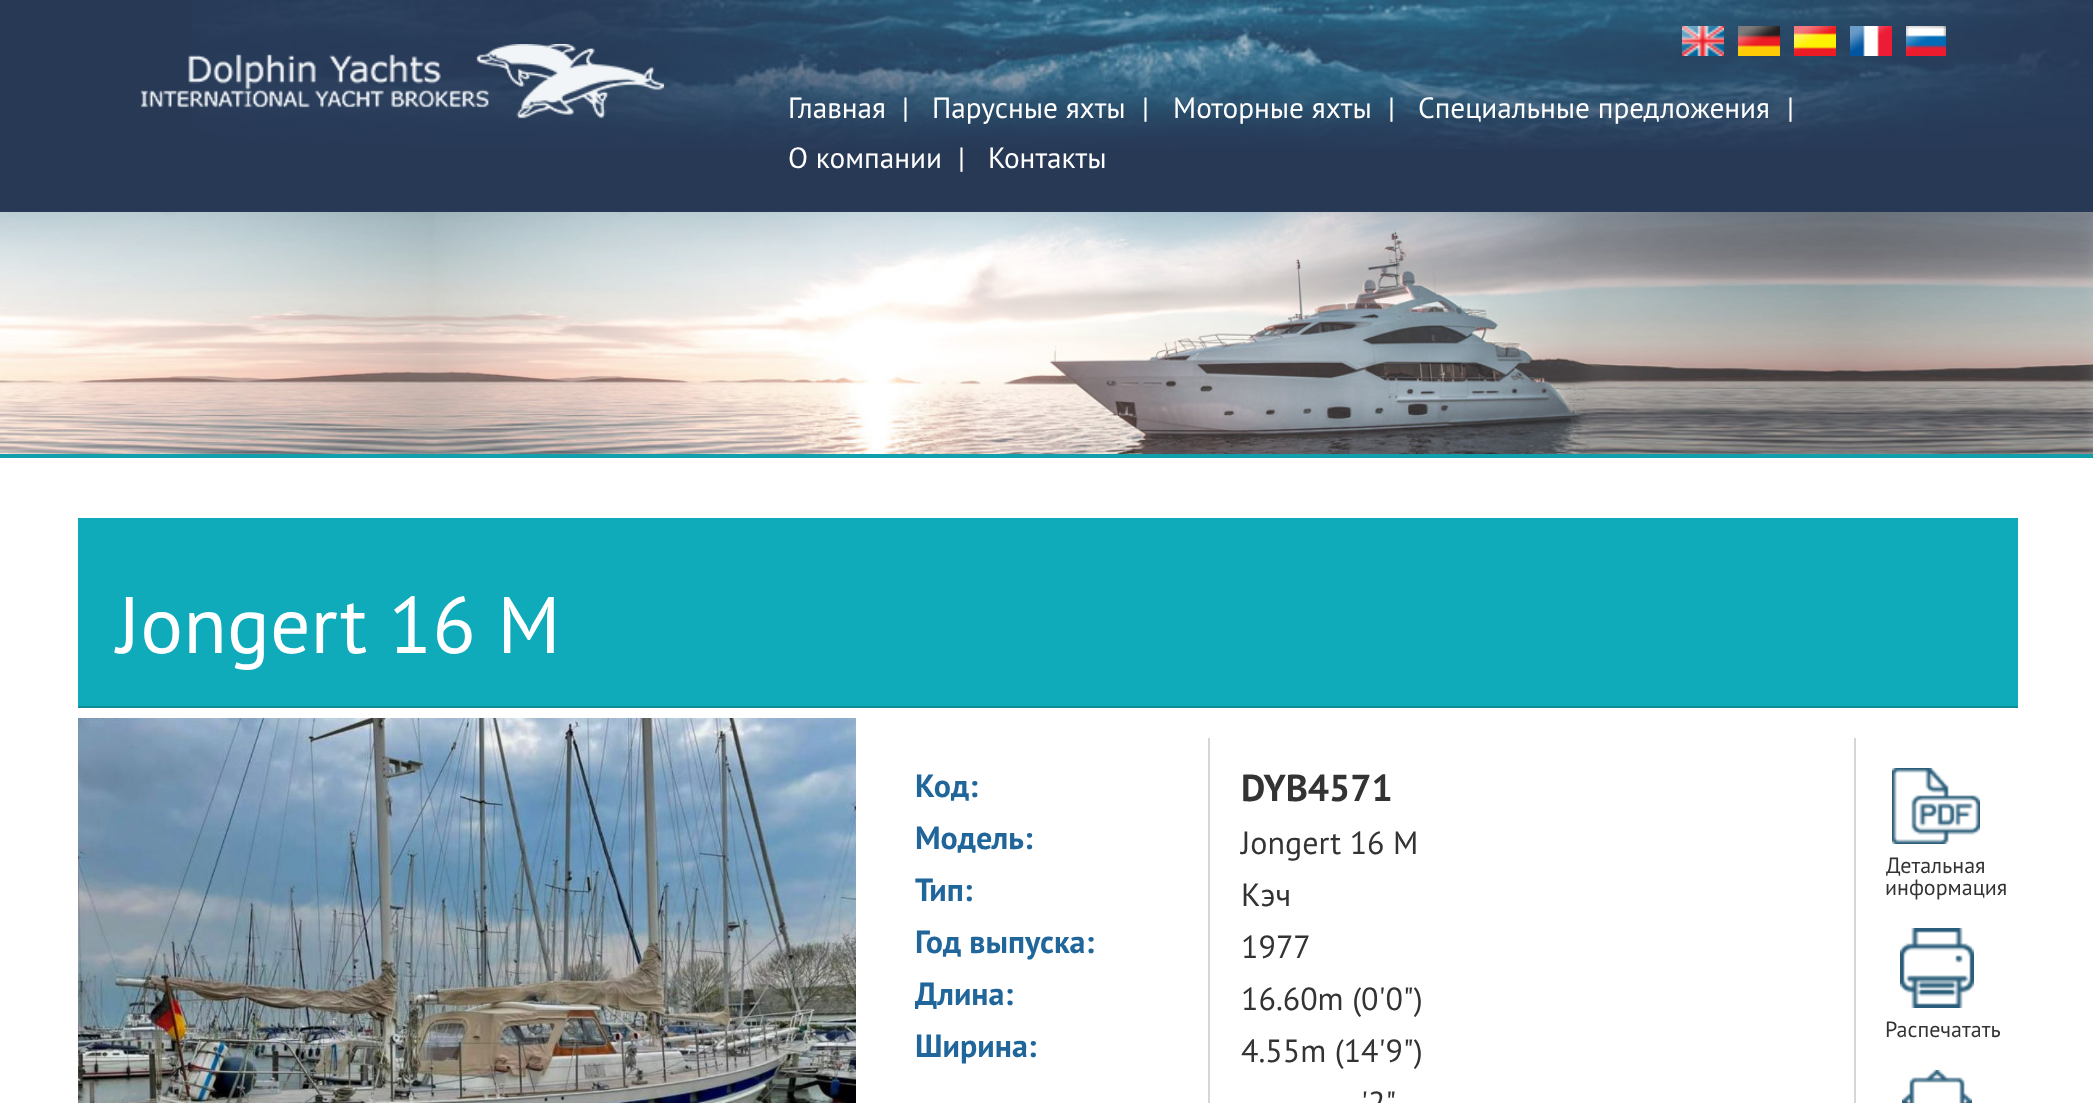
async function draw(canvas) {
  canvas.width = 2093;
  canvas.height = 1103;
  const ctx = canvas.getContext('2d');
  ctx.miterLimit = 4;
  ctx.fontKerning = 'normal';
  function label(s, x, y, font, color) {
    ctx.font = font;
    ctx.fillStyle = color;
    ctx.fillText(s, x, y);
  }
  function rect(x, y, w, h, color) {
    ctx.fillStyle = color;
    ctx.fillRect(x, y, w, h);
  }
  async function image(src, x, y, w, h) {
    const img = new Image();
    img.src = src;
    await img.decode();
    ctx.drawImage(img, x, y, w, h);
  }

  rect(0, 0, 2093, 1103, '#fff');
  rect(0, 0, 2093, 212, '#283956');
  await image('assets/img1.png', 192, 0, 1901, 149);
  await image('assets/img2.png', 140, 44, 524, 75);
  await image('assets/img3.png', 1682, 26, 42, 30);
  await image('assets/img4.png', 1738, 26, 42, 30);
  await image('assets/img5.png', 1794, 26, 42, 30);
  await image('assets/img6.png', 1850, 26, 42, 30);
  await image('assets/img7.png', 1906, 26, 40, 30);
  label('Главная', 788, 118, '29.25px PT Sans', '#fff');
  label('|', 902, 118, '29.25px PT Sans', '#fff');
  label('Парусные яхты', 932, 118, '29.25px PT Sans', '#fff');
  label('|', 1142, 118, '29.25px PT Sans', '#fff');
  label('Моторные яхты', 1173, 118, '29.25px PT Sans', '#fff');
  label('|', 1388, 118, '29.25px PT Sans', '#fff');
  label('Специальные предложения', 1418, 118, '29.25px PT Sans', '#fff');
  label('|', 1787, 118, '29.25px PT Sans', '#fff');
  label('О компании', 788, 168, '29.25px PT Sans', '#fff');
  label('|', 958, 168, '29.25px PT Sans', '#fff');
  label('Контакты', 988, 168, '29.25px PT Sans', '#fff');
  rect(0, 454, 2093, 4, '#0f9fad');
  await image('assets/img8.png', 0, 212, 2093, 242);
  rect(78, 518, 1940, 188, '#10abbb');
  rect(78, 706, 1940, 2, '#0e8c98');
  label('Jongert 16 M', 117, 653, '80px PT Sans', '#fff');
  await image('assets/img9.png', 78, 718, 778, 385);
  label('Код:', 915, 797, 'bold 32px PT Sans', '#20669b');
  label('Модель:', 915, 849, 'bold 32px PT Sans', '#20669b');
  label('Тип:', 915, 901, 'bold 32px PT Sans', '#20669b');
  label('Год выпуска:', 915, 953, 'bold 32px PT Sans', '#20669b');
  label('Длина:', 915, 1005, 'bold 32px PT Sans', '#20669b');
  label('Ширина:', 915, 1057, 'bold 32px PT Sans', '#20669b');
  rect(1854, 738, 2, 365, '#d6d6d6');
  rect(1208, 738, 2, 365, '#d6d6d6');
  label('DYB4571', 1241, 801, 'bold 37.5px PT Sans', '#333');
  label('Jongert 16 M', 1241, 854, '32px PT Sans', '#333');
  label('Кэч', 1241, 906, '32px PT Sans', '#333');
  label('1977', 1241, 958, '32px PT Sans', '#333');
  label('16.60m (0\'0")', 1241, 1010, '32px PT Sans', '#333');
  label('4.55m (14\'9")', 1241, 1062, '32px PT Sans', '#333');
  label('\'2"', 1361, 1114, '32px PT Sans', '#333');
  await image('assets/img10.png', 1892, 768, 88, 76);
  label('Детальная', 1886, 873, '22px PT Sans', '#333');
  label('информация', 1885, 895, '22px PT Sans', '#333');
  await image('assets/img11.png', 1900, 928, 74, 80);
  label('Распечатать', 1885, 1037, '22px PT Sans', '#333');
  await image('assets/img12.png', 1902, 1070, 70, 33);
}

draw(document.querySelector('canvas'));
